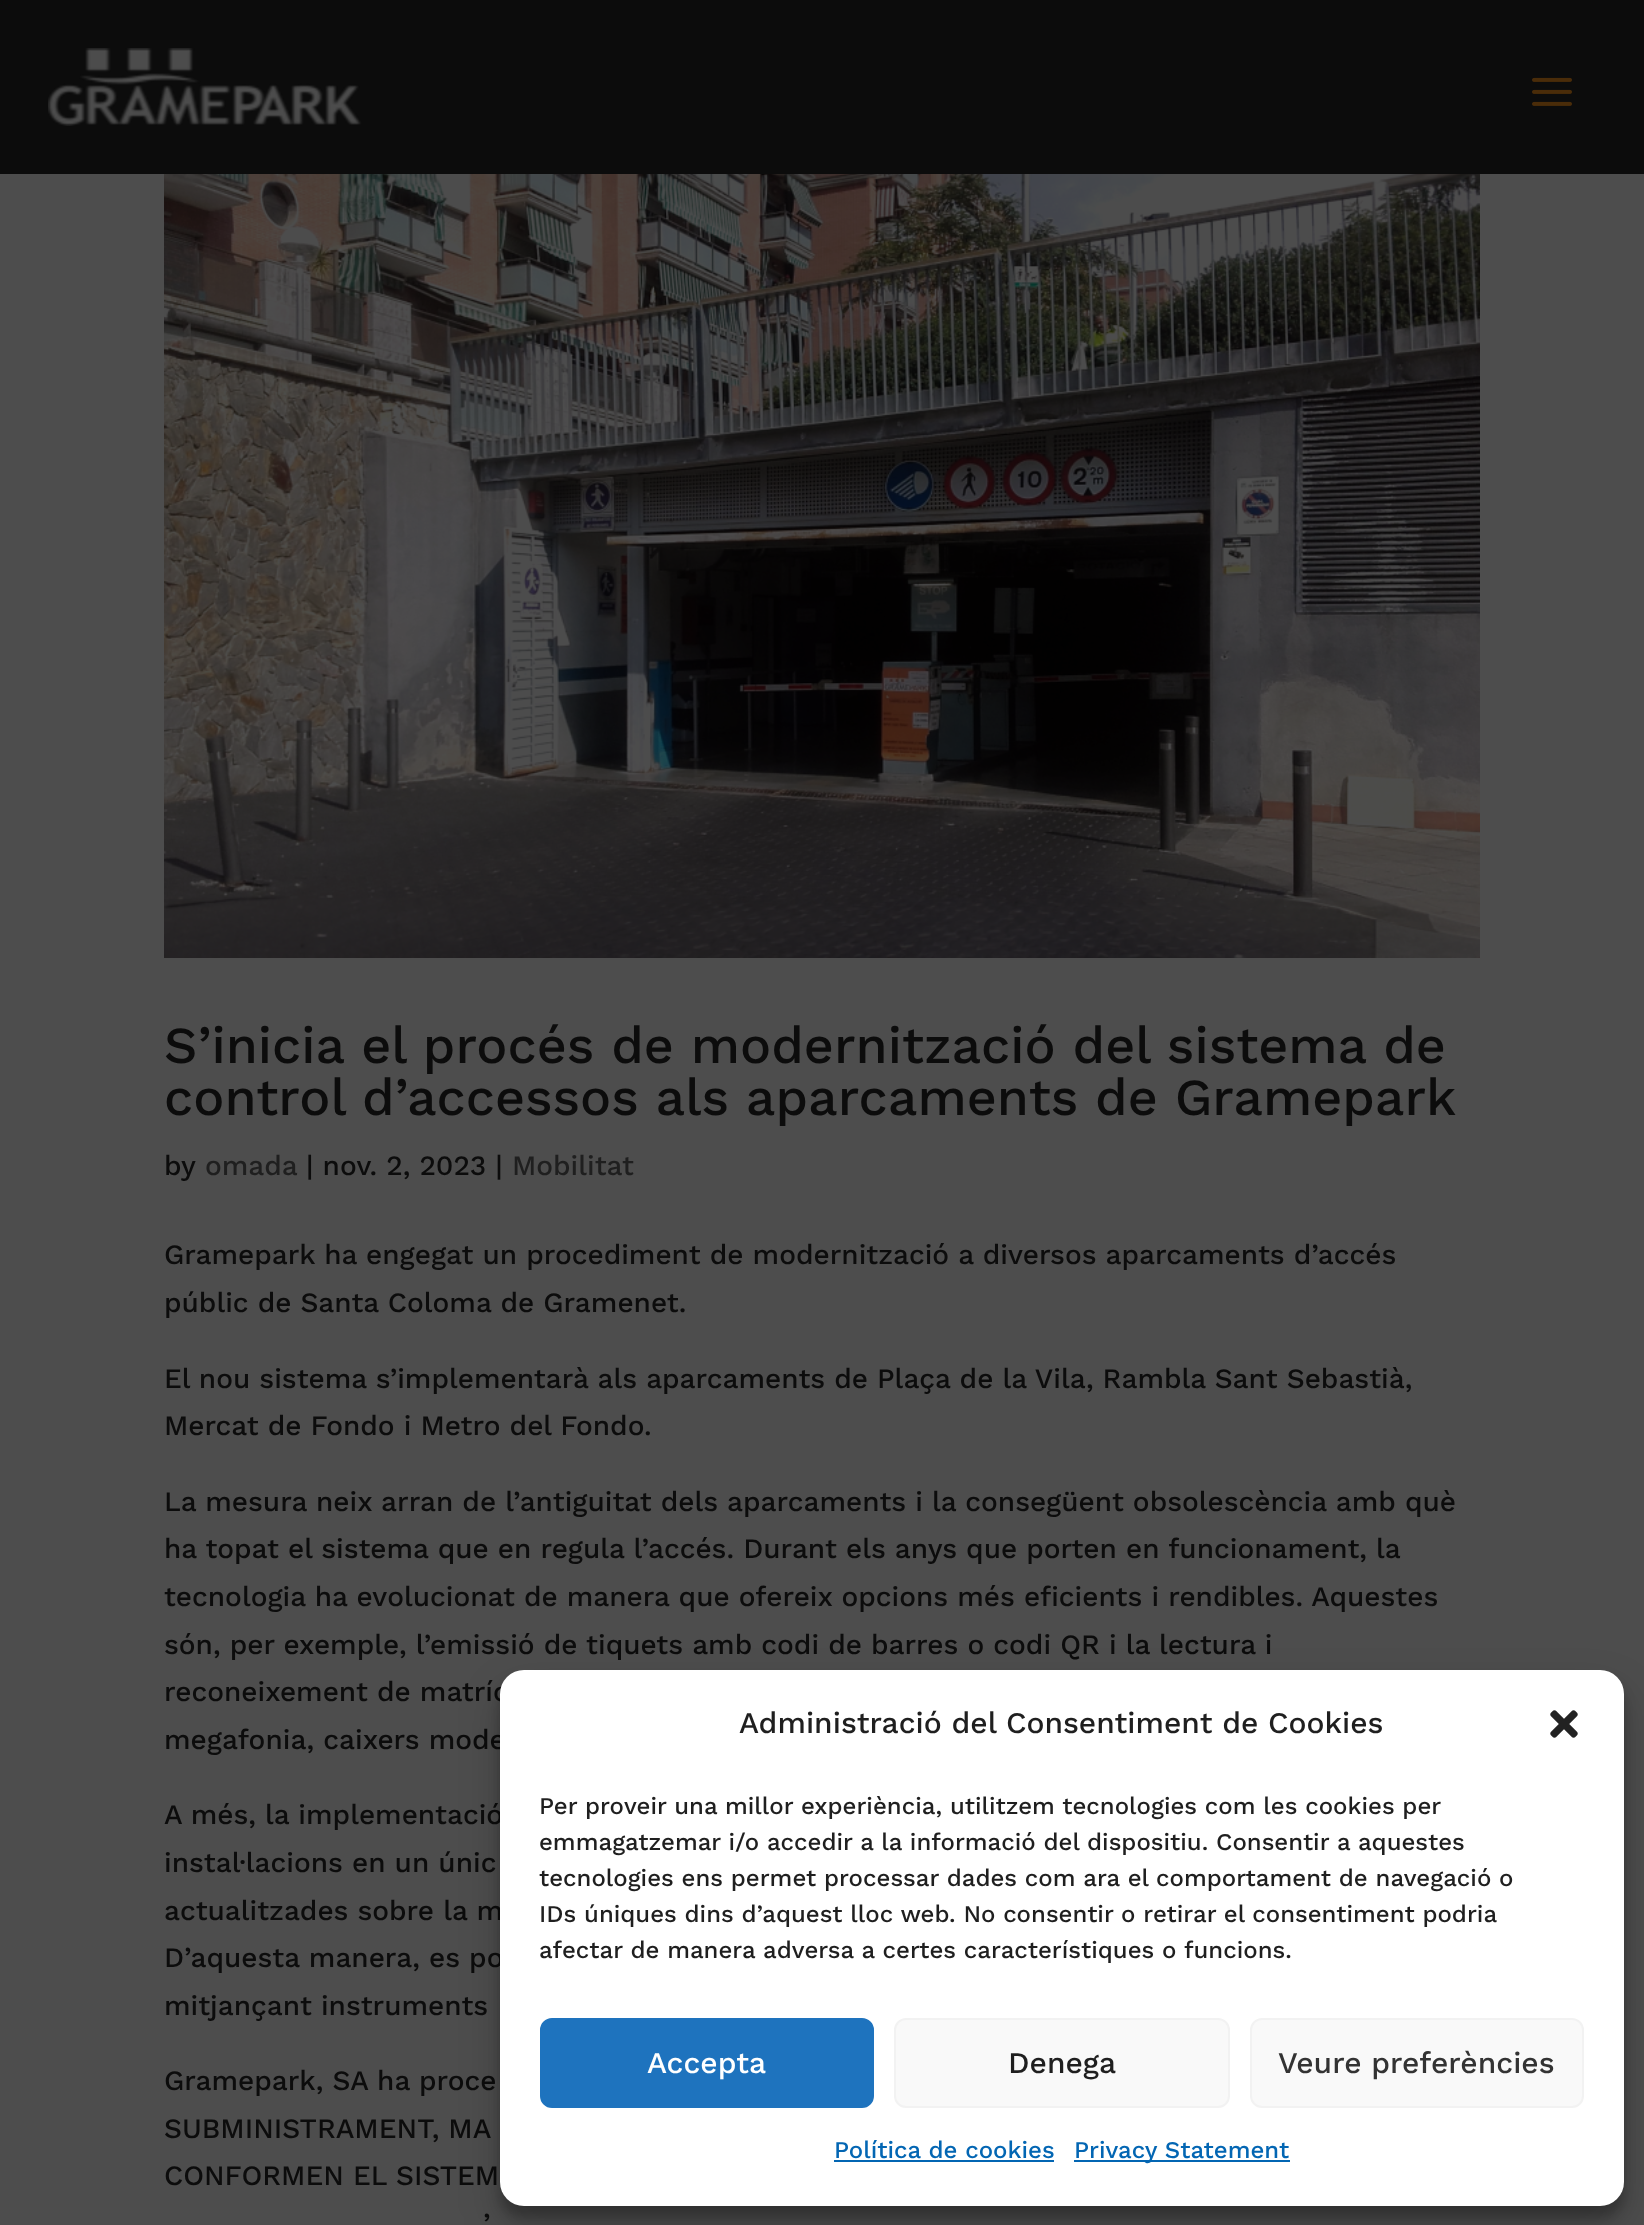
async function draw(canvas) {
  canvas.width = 1644;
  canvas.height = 2225;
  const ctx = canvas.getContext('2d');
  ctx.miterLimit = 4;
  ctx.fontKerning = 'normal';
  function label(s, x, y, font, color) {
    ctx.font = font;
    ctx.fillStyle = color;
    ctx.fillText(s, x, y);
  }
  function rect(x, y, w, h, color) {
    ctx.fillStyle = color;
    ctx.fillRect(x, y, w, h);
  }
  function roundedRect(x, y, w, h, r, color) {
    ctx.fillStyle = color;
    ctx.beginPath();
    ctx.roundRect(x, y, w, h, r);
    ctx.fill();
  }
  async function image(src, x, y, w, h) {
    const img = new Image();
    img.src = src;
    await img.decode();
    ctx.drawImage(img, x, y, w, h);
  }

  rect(0, 0, 1644, 2225, '#4d4d4d');
  rect(0, 0, 1644, 174, '#0c0c0c');
  await image('assets/img1.png', 48, 48, 314, 78);
  await image('assets/img2.png', 1532, 77, 40, 29);
  await image('assets/img3.png', 164, 174, 1316, 784);
  label('S’inicia el procés de modernització del sistema de', 164, 1063, '500 52px Work Sans', '#0c0c0c');
  label('control d’accessos als aparcaments de Gramepark', 164, 1115, '500 52px Work Sans', '#0c0c0c');
  label('by', 164, 1175, '500 28px Work Sans', '#0c0c0c');
  label('omada', 205, 1175, '500 28px Work Sans', '#1f1f1f');
  label('| nov. 2, 2023 |', 306, 1175, '500 28px Work Sans', '#0c0c0c');
  label('Mobilitat', 512, 1175, '500 28px Work Sans', '#1f1f1f');
  label('Gramepark ha engegat un procediment de modernització a diversos aparcaments d’accés', 164, 1264, '500 28px Work Sans', '#0c0c0c');
  label('públic de Santa Coloma de Gramenet.', 164, 1312, '500 28px Work Sans', '#0c0c0c');
  label('El nou sistema s’implementarà als aparcaments de Plaça de la Vila, Rambla Sant Sebastià,', 164, 1388, '500 28px Work Sans', '#0c0c0c');
  label('Mercat de Fondo i Metro del Fondo.', 164, 1435, '500 28px Work Sans', '#0c0c0c');
  label('La mesura neix arran de l’antiguitat dels aparcaments i la consegüent obsolescència amb què', 164, 1511, '500 28px Work Sans', '#0c0c0c');
  label('ha topat el sistema que en regula l’accés. Durant els anys que porten en funcionament, la', 164, 1558, '500 28px Work Sans', '#0c0c0c');
  label('tecnologia ha evolucionat de manera que ofereix opcions més eficients i rendibles. Aquestes', 164, 1606, '500 28px Work Sans', '#0c0c0c');
  label('són, per exemple, l’emissió de tiquets amb codi de barres o codi QR i la lectura i', 164, 1654, '500 28px Work Sans', '#0c0c0c');
  label('reconeixement de matríc', 164, 1701, '500 28px Work Sans', '#0c0c0c');
  label('megafonia, caixers mode', 164, 1749, '500 28px Work Sans', '#0c0c0c');
  label('A més, la implementació', 164, 1824, '500 28px Work Sans', '#0c0c0c');
  label('instal·lacions en un únic', 164, 1872, '500 28px Work Sans', '#0c0c0c');
  label('actualitzades sobre la m', 164, 1920, '500 28px Work Sans', '#0c0c0c');
  label('D’aquesta manera, es po', 164, 1967, '500 28px Work Sans', '#0c0c0c');
  label('mitjançant instruments', 164, 2015, '500 28px Work Sans', '#0c0c0c');
  label('Gramepark, SA ha proce', 164, 2090, '500 28px Work Sans', '#0c0c0c');
  label('SUBMINISTRAMENT, MA', 164, 2138, '500 28px Work Sans', '#0c0c0c');
  label('CONFORMEN EL SISTEM', 164, 2185, '500 28px Work Sans', '#0c0c0c');
  label('’', 483, 2233, '500 28px Work Sans', '#0c0c0c');
  ctx.fillStyle = '#0000003b';
  ctx.filter = 'blur(6px)';
  ctx.beginPath();
  ctx.roundRect(500, 1682, 1124, 536, 24);
  ctx.fill();
  ctx.filter = 'none';
  ctx.fillStyle = '#00000030';
  ctx.filter = 'blur(20px)';
  ctx.beginPath();
  ctx.roundRect(500, 1690, 1124, 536, 24);
  ctx.fill();
  ctx.filter = 'none';
  roundedRect(500, 1670, 1124, 536, 24, '#fff');
  label('Administració del Consentiment de Cookies', 739, 1733, '500 30px Work Sans', '#1f1f1f');
  await image('assets/img4.png', 1550, 1710, 28, 28);
  label('Per proveir una millor experiència, utilitzem tecnologies com les cookies per', 539, 1814, '500 24px Work Sans', '#1f1f1f');
  label('emmagatzemar i/o accedir a la informació del dispositiu. Consentir a aquestes', 539, 1850, '500 24px Work Sans', '#1f1f1f');
  label('tecnologies ens permet processar dades com ara el comportament de navegació o', 539, 1886, '500 24px Work Sans', '#1f1f1f');
  label('IDs úniques dins d’aquest lloc web. No consentir o retirar el consentiment podria', 539, 1922, '500 24px Work Sans', '#1f1f1f');
  label('afectar de manera adversa a certes característiques o funcions.', 539, 1958, '500 24px Work Sans', '#1f1f1f');
  ctx.fillStyle = '#1e73be';
  ctx.beginPath();
  ctx.roundRect(541, 2019, 332, 88, 11);
  ctx.fill();
  ctx.strokeStyle = '#1e73be';
  ctx.lineWidth = 2;
  ctx.stroke();
  label('Accepta', 647, 2073, '500 30px Work Sans', '#fff');
  ctx.fillStyle = '#f9f9f9';
  ctx.beginPath();
  ctx.roundRect(895, 2019, 334, 88, 11);
  ctx.fill();
  ctx.strokeStyle = '#f2f2f2';
  ctx.stroke();
  label('Denega', 1008, 2073, '500 30px Work Sans', '#1f1f1f');
  ctx.fillStyle = '#f9f9f9';
  ctx.beginPath();
  ctx.roundRect(1251, 2019, 332, 88, 11);
  ctx.fill();
  ctx.stroke();
  label('Veure preferències', 1278, 2073, '500 30px Work Sans', '#333');
  label('Política de cookies', 834, 2158, '500 24px Work Sans', '#0366b3');
  rect(834, 2160, 220, 2, '#0366b3');
  rect(1074, 2160, 216, 2, '#0366b3');
  label('Privacy Statement', 1074, 2158, '500 24px Work Sans', '#0366b3');
}

draw(document.querySelector('canvas'));
